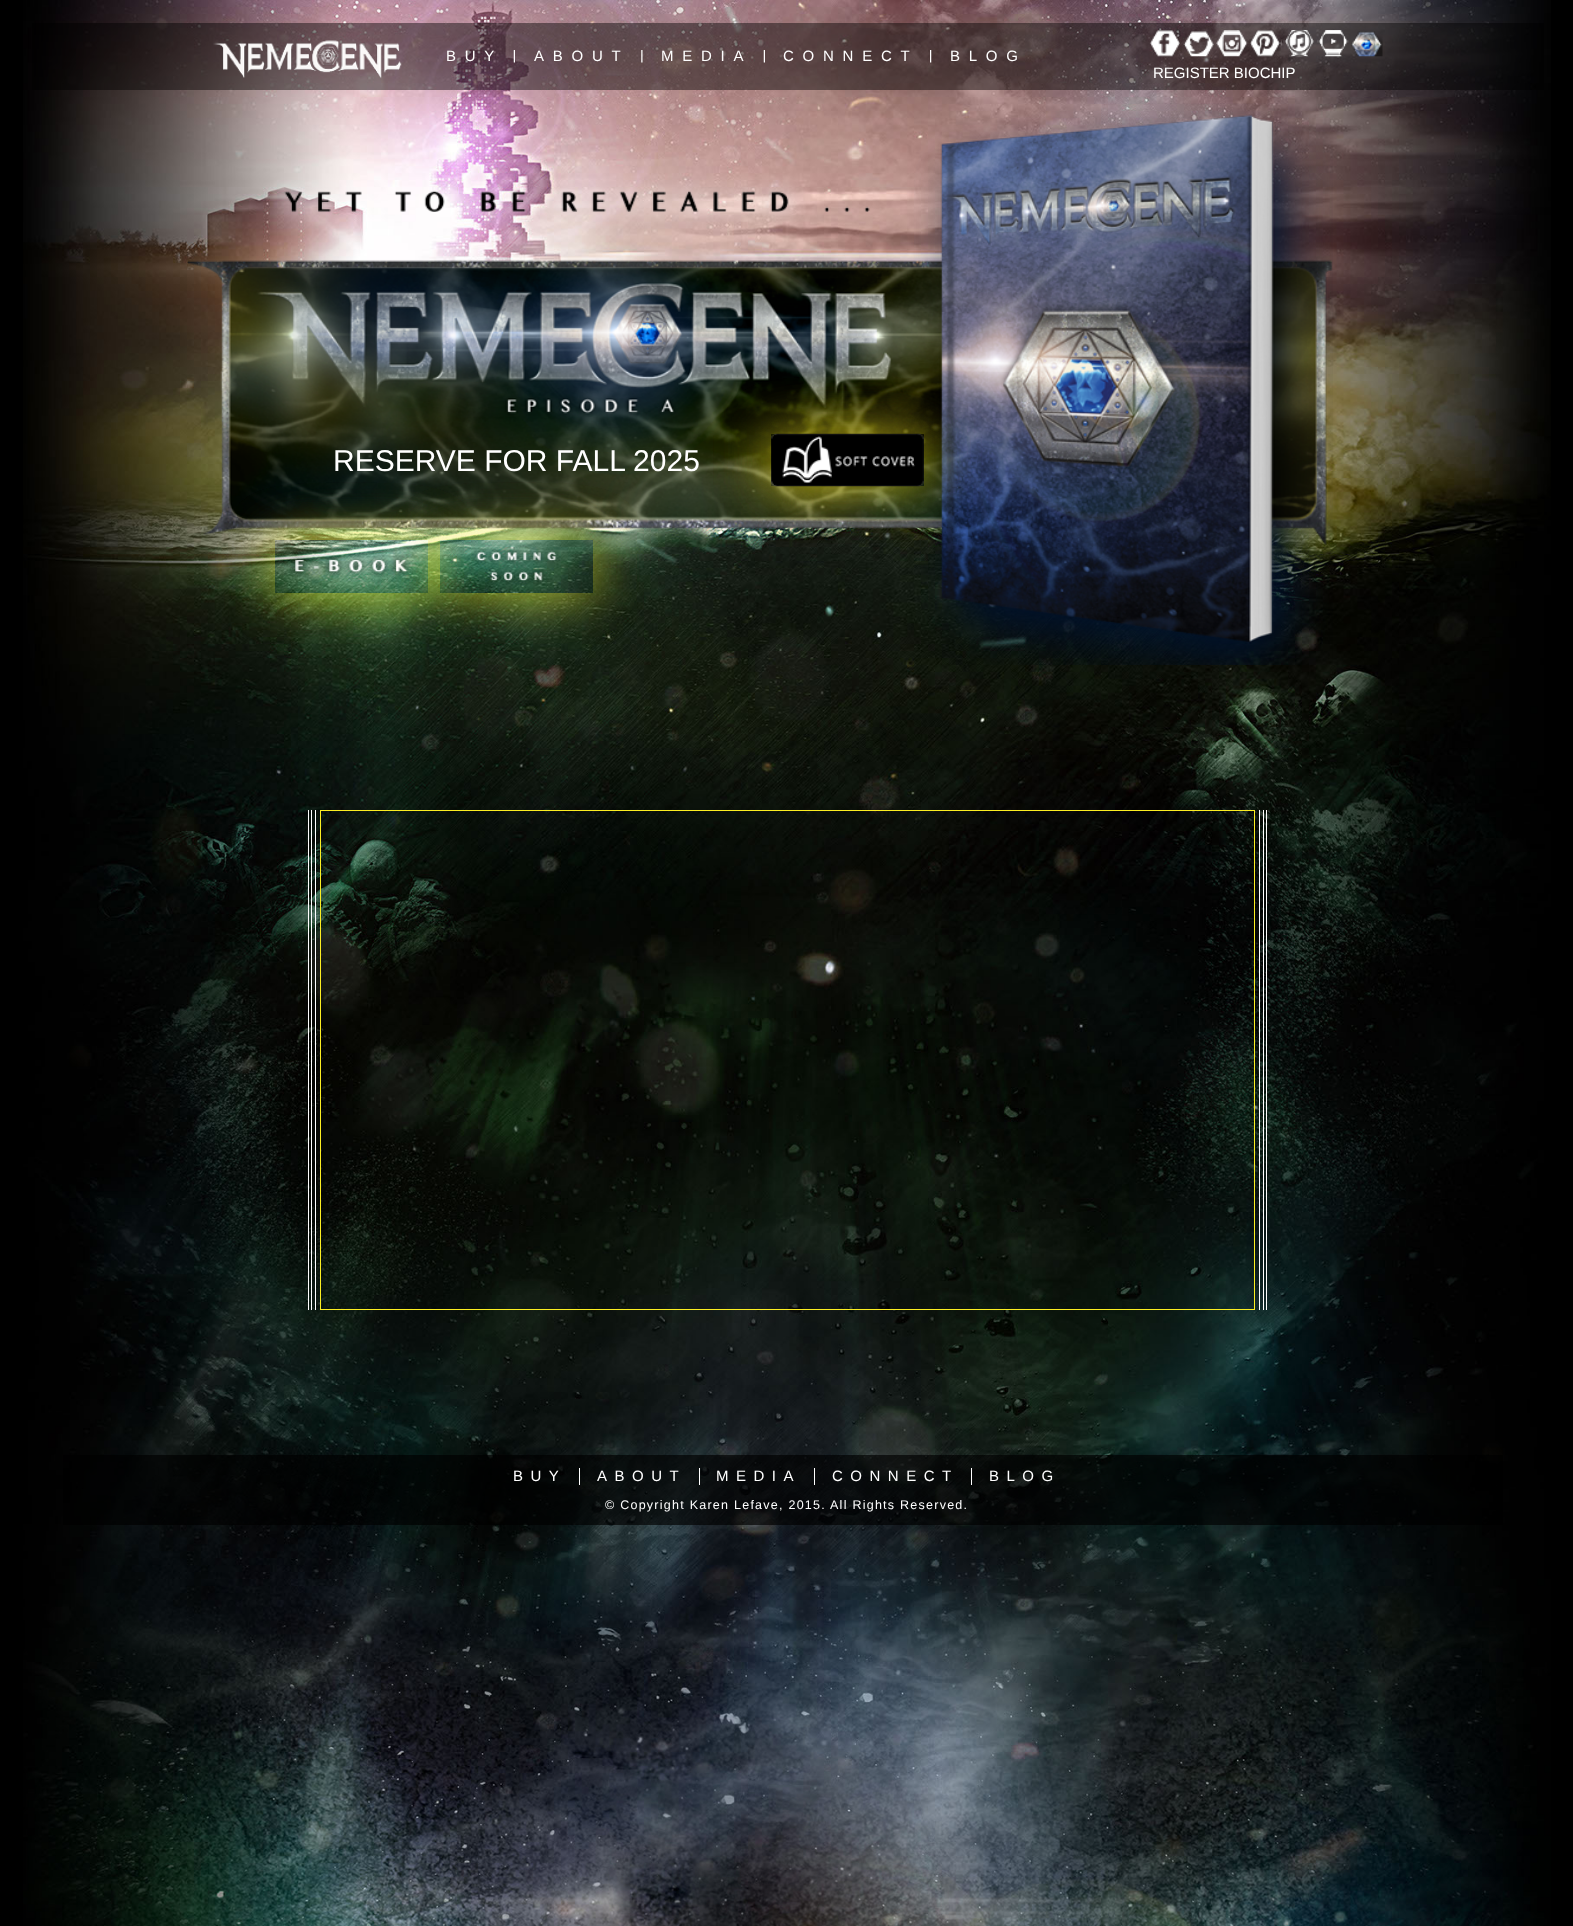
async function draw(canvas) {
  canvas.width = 1573;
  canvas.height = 1926;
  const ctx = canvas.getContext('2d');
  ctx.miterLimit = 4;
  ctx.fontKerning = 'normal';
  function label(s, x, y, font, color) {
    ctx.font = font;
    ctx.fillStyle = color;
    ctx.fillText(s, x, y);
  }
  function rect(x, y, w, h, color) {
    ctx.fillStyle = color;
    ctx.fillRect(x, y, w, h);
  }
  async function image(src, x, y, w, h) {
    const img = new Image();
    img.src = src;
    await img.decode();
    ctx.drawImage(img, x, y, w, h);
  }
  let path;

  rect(0, 0, 1573, 1926, '#000');
  await image('assets/img1.png', 23, 0, 1528, 1926);
  rect(32, 23, 1512, 67, '#00000070');
  await image('assets/img2.png', 213, 40, 189, 39);
  await image('assets/img3.png', 513, 50, 2, 13);
  ctx.letterSpacing = '8.75px';
  label('BUY', 446, 61, '15px Liberation Sans', '#fff');
  await image('assets/img4.png', 641, 50, 2, 13);
  label('ABOUT', 534, 61, '15px Liberation Sans', '#fff');
  await image('assets/img5.png', 763, 50, 2, 13);
  label('MEDIA', 661, 61, '15px Liberation Sans', '#fff');
  await image('assets/img6.png', 930, 50, 2, 13);
  label('CONNECT', 783, 61, '15px Liberation Sans', '#fff');
  label('BLOG', 950, 61, '15px Liberation Sans', '#fff');
  await image('assets/img7.png', 1149, 30, 31, 27);
  await image('assets/img8.png', 1183, 31, 31, 26);
  await image('assets/img9.png', 1216, 30, 32, 27);
  await image('assets/img10.png', 1250, 30, 32, 27);
  await image('assets/img11.png', 1283, 30, 32, 27);
  await image('assets/img12.png', 1317, 30, 32, 27);
  await image('assets/img13.png', 1351, 31, 32, 26);
  ctx.letterSpacing = '0px';
  label('REGISTER BIOCHIP', 1153, 78, '15px Liberation Sans', '#fff');
  await image('assets/img14.png', 187, 103, 1146, 562);
  label('RESERVE FOR FALL 2025', 333, 471, '30px Liberation Sans', '#fff');
  ctx.save();
  path = new Path2D('M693 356H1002V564H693ZM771 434H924V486H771Z');
  ctx.clip(path, 'evenodd');
  ctx.fillStyle = '#fcee2166';
  ctx.filter = 'blur(25.5px)';
  ctx.beginPath();
  ctx.rect(771, 434, 153, 52);
  ctx.fill();
  ctx.filter = 'none';
  ctx.filter = 'blur(25.5px)';
  ctx.beginPath();
  ctx.rect(771, 434, 153, 52);
  ctx.fill();
  ctx.filter = 'none';
  ctx.restore();
  await image('assets/img15.png', 771, 433, 153, 54);
  ctx.save();
  path = new Path2D('M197 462H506V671H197ZM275 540H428V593H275Z');
  ctx.clip(path, 'evenodd');
  ctx.fillStyle = '#fcee2166';
  ctx.filter = 'blur(25.5px)';
  ctx.beginPath();
  ctx.rect(275, 540, 153, 53);
  ctx.fill();
  ctx.filter = 'none';
  ctx.filter = 'blur(25.5px)';
  ctx.beginPath();
  ctx.rect(275, 540, 153, 53);
  ctx.fill();
  ctx.filter = 'none';
  ctx.restore();
  await image('assets/img16.png', 289, 554, 122, 23);
  ctx.save();
  path = new Path2D('M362 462H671V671H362ZM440 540H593V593H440Z');
  ctx.clip(path, 'evenodd');
  ctx.fillStyle = '#fcee2166';
  ctx.filter = 'blur(25.5px)';
  ctx.beginPath();
  ctx.rect(440, 540, 153, 53);
  ctx.fill();
  ctx.filter = 'none';
  ctx.filter = 'blur(25.5px)';
  ctx.beginPath();
  ctx.rect(440, 540, 153, 53);
  ctx.fill();
  ctx.filter = 'none';
  ctx.restore();
  await image('assets/img17.png', 472, 547, 88, 38);
  rect(1266, 810, 1, 500, '#fff');
  rect(308, 810, 1, 500, '#fff');
  rect(1259, 810, 1, 500, '#fff');
  rect(1263, 810, 1, 500, '#fff');
  rect(311, 810, 1, 500, '#fff');
  rect(315, 810, 1, 500, '#fff');
  ctx.strokeStyle = '#fcee21';
  ctx.strokeRect(320.5, 810.5, 934, 499);
  rect(63, 1455, 1440, 70, '#000000a8');
  rect(579, 1468, 1, 17, '#fff');
  ctx.letterSpacing = '7.5px';
  label('BUY', 513, 1481, '15px Liberation Sans', '#fff');
  rect(699, 1468, 1, 17, '#fff');
  label('ABOUT', 597, 1481, '15px Liberation Sans', '#fff');
  rect(814, 1468, 1, 17, '#fff');
  label('MEDIA', 716, 1481, '15px Liberation Sans', '#fff');
  rect(971, 1468, 1, 17, '#fff');
  label('CONNECT', 832, 1481, '15px Liberation Sans', '#fff');
  label('BLOG', 989, 1481, '15px Liberation Sans', '#fff');
  ctx.letterSpacing = '1.25px';
  label('© Copyright Karen Lefave, 2015. All Rights Reserved.', 605, 1509, '12.5px Liberation Sans', '#fff');
}

draw(document.querySelector('canvas'));
